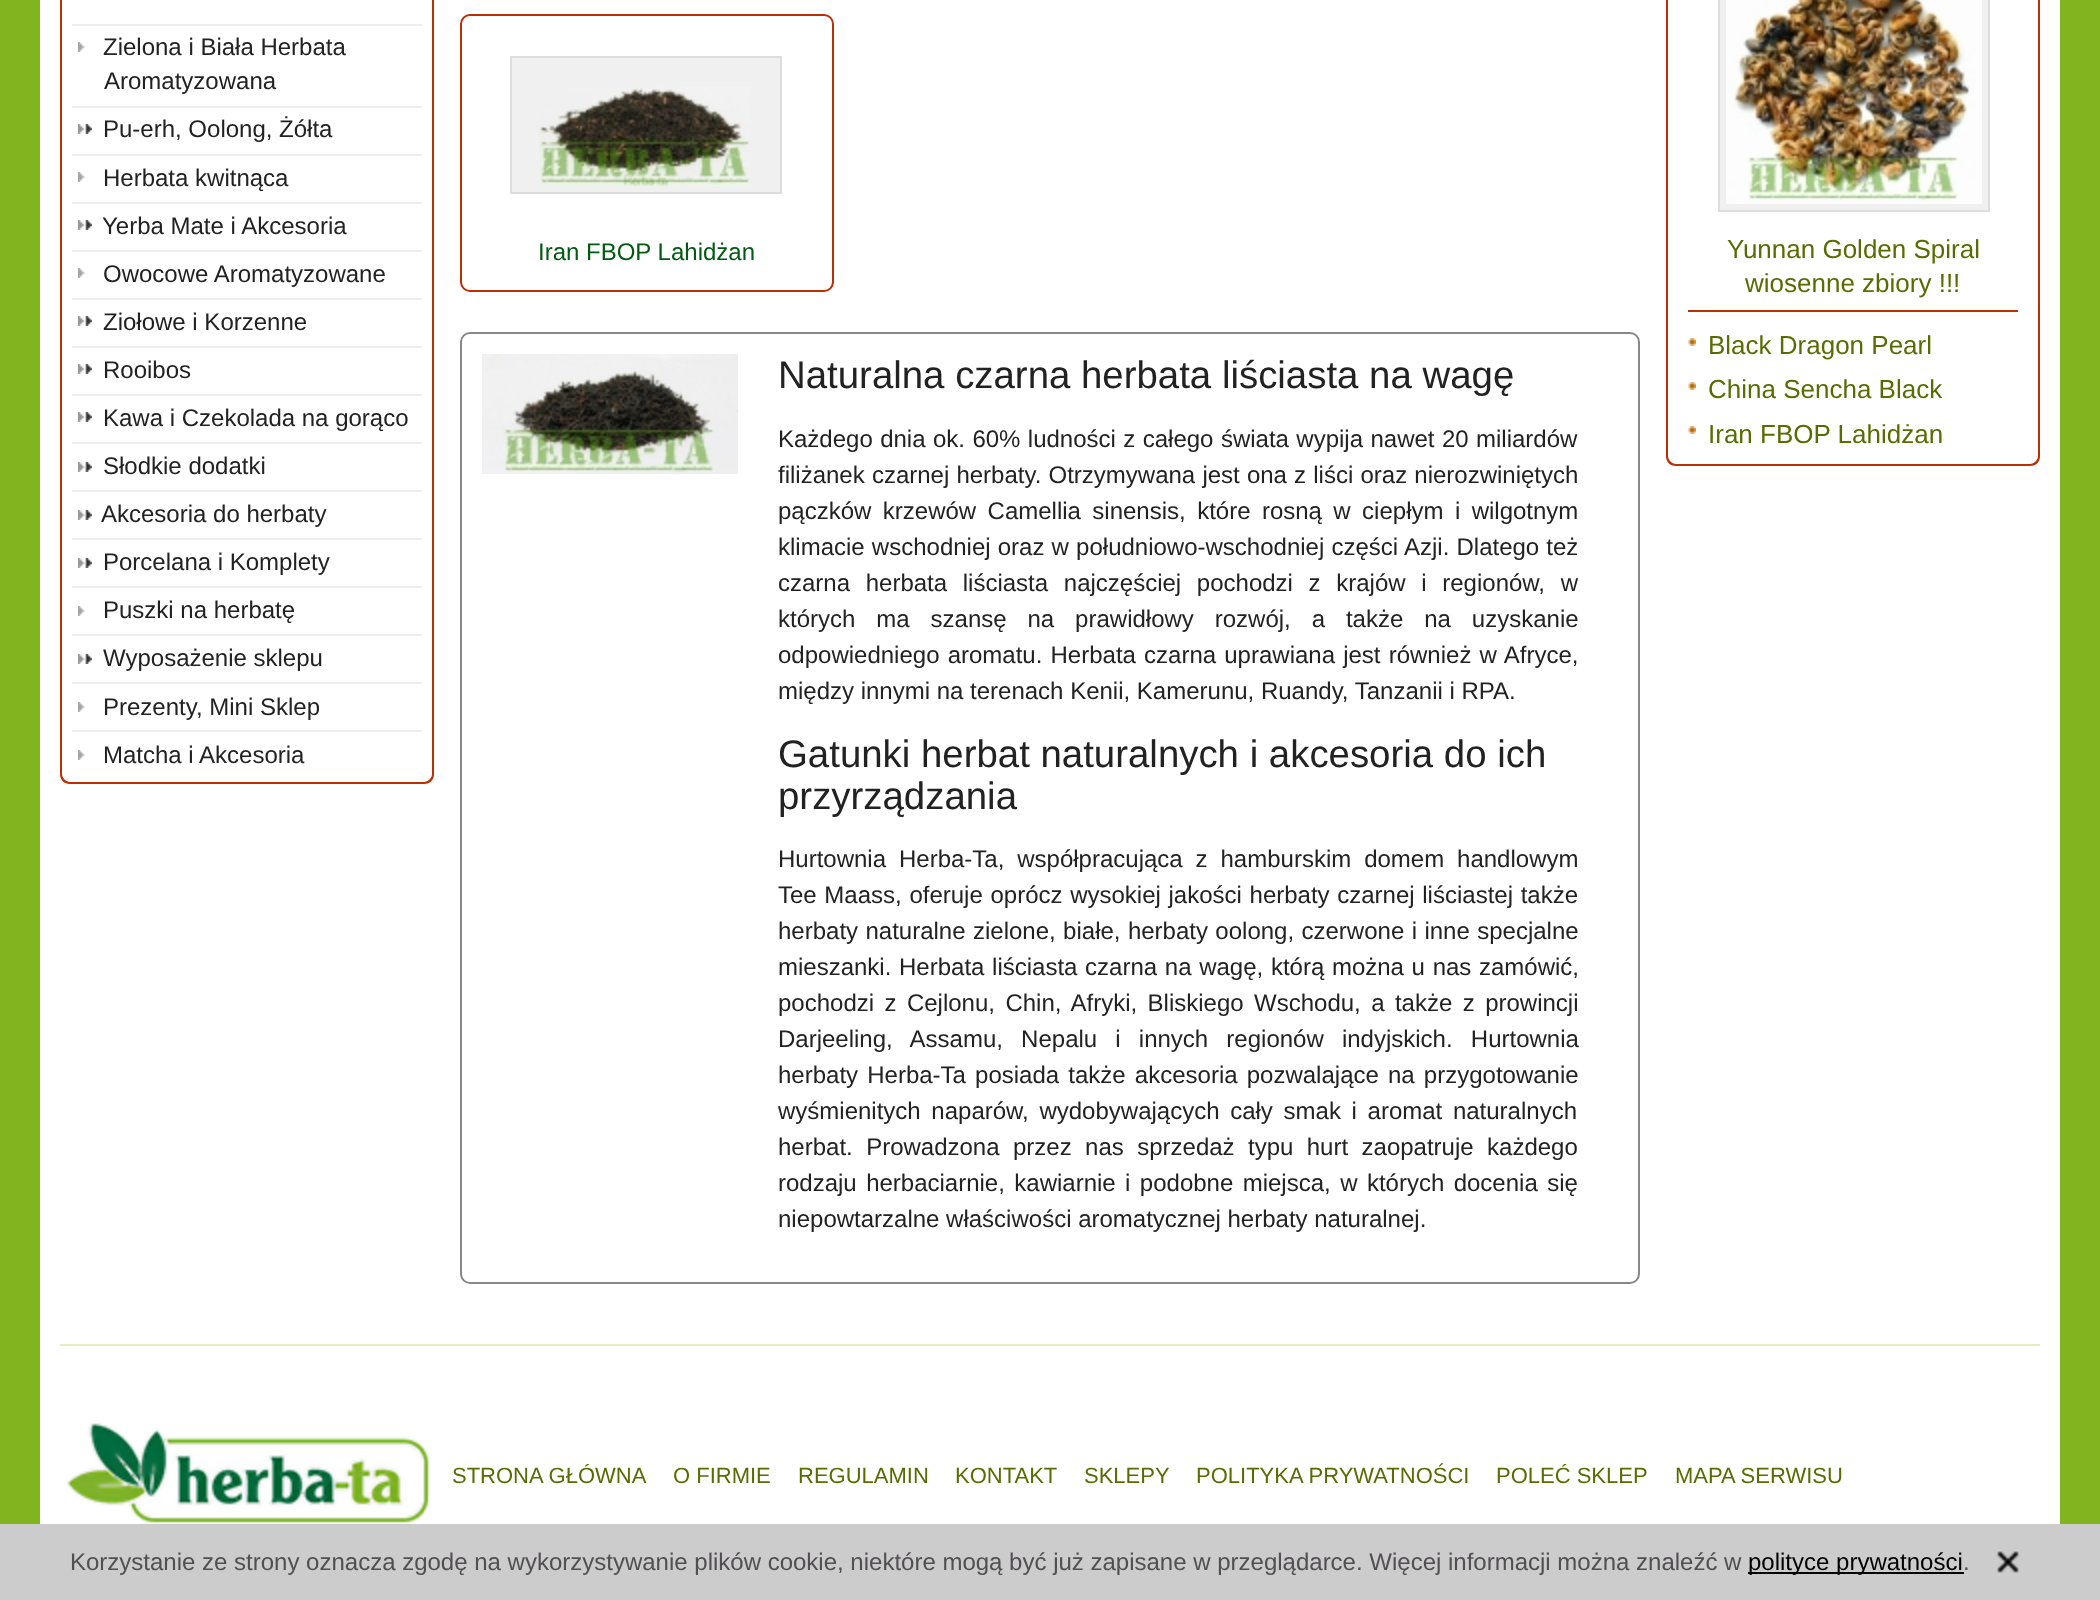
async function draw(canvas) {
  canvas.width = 2100;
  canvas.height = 1600;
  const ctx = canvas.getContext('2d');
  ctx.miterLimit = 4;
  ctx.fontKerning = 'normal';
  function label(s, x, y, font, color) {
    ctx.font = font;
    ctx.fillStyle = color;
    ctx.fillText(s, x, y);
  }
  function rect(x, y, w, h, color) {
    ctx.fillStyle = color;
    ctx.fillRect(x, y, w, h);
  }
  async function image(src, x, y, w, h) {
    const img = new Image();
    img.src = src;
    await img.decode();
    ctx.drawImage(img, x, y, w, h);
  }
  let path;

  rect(0, 0, 2100, 1600, '#80b51f');
  rect(40, 0, 2020, 1524, '#fff');
  ctx.fillStyle = '#bc2e03';
  path = new Path2D('M60-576H434V774C434 780 430 784 424 784H70C64 784 60 780 60 774ZM62-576H432V774C432 778 428 782 424 782H70C66 782 62 778 62 774Z');
  ctx.fill(path, 'evenodd');
  rect(72, 24, 350, 2, '#eee');
  await image('assets/img1.png', 78, 42, 7, 10);
  label('Zielona i Biała Herbata', 103, 55, '24px Liberation Sans', '#222');
  label('Aromatyzowana', 104, 89, '24px Liberation Sans', '#222');
  rect(72, 106, 350, 2, '#eee');
  await image('assets/img2.png', 78, 124, 14, 10);
  label('Pu-erh, Oolong, Żółta', 103, 137, '24px Liberation Sans', '#222');
  rect(72, 154, 350, 2, '#eee');
  await image('assets/img1.png', 78, 172, 7, 10);
  label('Herbata kwitnąca', 103, 186, '24px Liberation Sans', '#222');
  rect(72, 202, 350, 2, '#eee');
  await image('assets/img2.png', 78, 220, 14, 10);
  label('Yerba Mate i Akcesoria', 102, 234, '24px Liberation Sans', '#222');
  rect(72, 250, 350, 2, '#eee');
  await image('assets/img1.png', 78, 268, 7, 10);
  label('Owocowe Aromatyzowane', 103, 282, '24px Liberation Sans', '#222');
  rect(72, 298, 350, 2, '#eee');
  await image('assets/img2.png', 78, 316, 14, 10);
  label('Ziołowe i Korzenne', 103, 330, '24px Liberation Sans', '#222');
  rect(72, 346, 350, 2, '#eee');
  await image('assets/img2.png', 78, 364, 14, 10);
  label('Rooibos', 103, 378, '24px Liberation Sans', '#222');
  rect(72, 394, 350, 2, '#eee');
  await image('assets/img2.png', 78, 412, 14, 10);
  label('Kawa i Czekolada na gorąco', 103, 426, '24px Liberation Sans', '#222');
  rect(72, 442, 350, 2, '#eee');
  await image('assets/img2.png', 78, 462, 14, 10);
  label('Słodkie dodatki', 103, 474, '24px Liberation Sans', '#222');
  rect(72, 490, 350, 2, '#eee');
  await image('assets/img2.png', 78, 510, 14, 10);
  label('Akcesoria do herbaty', 101, 522, '24px Liberation Sans', '#222');
  rect(72, 538, 350, 2, '#eee');
  await image('assets/img2.png', 78, 558, 14, 10);
  label('Porcelana i Komplety', 103, 570, '24px Liberation Sans', '#222');
  rect(72, 586, 350, 2, '#eee');
  await image('assets/img1.png', 78, 606, 7, 10);
  label('Puszki na herbatę', 103, 618, '24px Liberation Sans', '#222');
  rect(72, 634, 350, 2, '#eee');
  await image('assets/img2.png', 78, 654, 14, 10);
  label('Wyposażenie sklepu', 103, 666, '24px Liberation Sans', '#222');
  rect(72, 682, 350, 2, '#eee');
  await image('assets/img1.png', 78, 702, 7, 10);
  label('Prezenty, Mini Sklep', 103, 715, '24px Liberation Sans', '#222');
  rect(72, 730, 350, 2, '#eee');
  await image('assets/img1.png', 78, 750, 7, 10);
  label('Matcha i Akcesoria', 103, 763, '24px Liberation Sans', '#222');
  ctx.beginPath();
  ctx.roundRect(461, 15, 372, 276, 9);
  ctx.strokeStyle = '#bc2e03';
  ctx.lineWidth = 2;
  ctx.stroke();
  ctx.fillStyle = '#f0f0f0';
  ctx.beginPath();
  ctx.rect(511, 57, 270, 136);
  ctx.fill();
  ctx.strokeStyle = '#ddd';
  ctx.stroke();
  await image('assets/img3.png', 539, 87, 211, 99);
  label('Iran FBOP Lahidżan', 538, 260, '24px Liberation Sans', '#005a11');
  ctx.beginPath();
  ctx.roundRect(461, 333, 1178, 950, 9);
  ctx.strokeStyle = '#888';
  ctx.stroke();
  await image('assets/img4.png', 482, 354, 256, 120);
  label('Naturalna czarna herbata liściasta na wagę', 778, 388, '38.4px Liberation Sans', '#222');
  ctx.wordSpacing = '0.75px';
  label('Każdego dnia ok. 60% ludności z całego świata wypija nawet 20 miliardów', 778, 447, '24px Liberation Sans', '#222');
  ctx.wordSpacing = '0.5px';
  label('filiżanek czarnej herbaty. Otrzymywana jest ona z liści oraz nierozwiniętych', 778, 483, '24px Liberation Sans', '#222');
  ctx.wordSpacing = '4.75px';
  label('pączków krzewów Camellia sinensis, które rosną w ciepłym i wilgotnym', 778, 519, '24px Liberation Sans', '#222');
  ctx.wordSpacing = '0.5px';
  label('klimacie wschodniej oraz w południowo-wschodniej części Azji. Dlatego też', 778, 555, '24px Liberation Sans', '#222');
  ctx.wordSpacing = '9px';
  label('czarna herbata liściasta najczęściej pochodzi z krajów i regionów, w', 778, 591, '24px Liberation Sans', '#222');
  ctx.wordSpacing = '14.25px';
  label('których ma szansę na prawidłowy rozwój, a także na uzyskanie', 778, 627, '24px Liberation Sans', '#222');
  ctx.wordSpacing = '1.5px';
  label('odpowiedniego aromatu. Herbata czarna uprawiana jest również w Afryce,', 778, 663, '24px Liberation Sans', '#222');
  ctx.wordSpacing = '0px';
  label('między innymi na terenach Kenii, Kamerunu, Ruandy, Tanzanii i RPA.', 778, 699, '24px Liberation Sans', '#222');
  label('Gatunki herbat naturalnych i akcesoria do ich', 778, 767, '38.4px Liberation Sans', '#222');
  label('przyrządzania', 778, 809, '38.4px Liberation Sans', '#222');
  ctx.wordSpacing = '6.25px';
  label('Hurtownia Herba-Ta, współpracująca z hamburskim domem handlowym', 778, 867, '24px Liberation Sans', '#222');
  ctx.wordSpacing = '1px';
  label('Tee Maass, oferuje oprócz wysokiej jakości herbaty czarnej liściastej także', 778, 903, '24px Liberation Sans', '#222');
  ctx.wordSpacing = '0.75px';
  label('herbaty naturalne zielone, białe, herbaty oolong, czerwone i inne specjalne', 778, 939, '24px Liberation Sans', '#222');
  ctx.wordSpacing = '1px';
  label('mieszanki. Herbata liściasta czarna na wagę, którą można u nas zamówić,', 778, 975, '24px Liberation Sans', '#222');
  ctx.wordSpacing = '3.75px';
  label('pochodzi z Cejlonu, Chin, Afryki, Bliskiego Wschodu, a także z prowincji', 778, 1011, '24px Liberation Sans', '#222');
  ctx.wordSpacing = '11.5px';
  label('Darjeeling, Assamu, Nepalu i innych regionów indyjskich. Hurtownia', 778, 1047, '24px Liberation Sans', '#222');
  ctx.wordSpacing = '2.5px';
  label('herbaty Herba-Ta posiada także akcesoria pozwalające na przygotowanie', 778, 1083, '24px Liberation Sans', '#222');
  ctx.wordSpacing = '4px';
  label('wyśmienitych naparów, wydobywających cały smak i aromat naturalnych', 778, 1119, '24px Liberation Sans', '#222');
  ctx.wordSpacing = '6.75px';
  label('herbat. Prowadzona przez nas sprzedaż typu hurt zaopatruje każdego', 778, 1155, '24px Liberation Sans', '#222');
  ctx.wordSpacing = '2.75px';
  label('rodzaju herbaciarnie, kawiarnie i podobne miejsca, w których docenia się', 778, 1191, '24px Liberation Sans', '#222');
  ctx.wordSpacing = '0px';
  label('niepowtarzalne właściwości aromatycznej herbaty naturalnej.', 778, 1227, '24px Liberation Sans', '#222');
  ctx.fillStyle = '#bc2e03';
  path = new Path2D('M1666-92H2040V456C2040 462 2036 466 2030 466H1676C1670 466 1666 462 1666 456ZM1668-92H2038V456C2038 460 2034 464 2030 464H1676C1672 464 1668 460 1668 456Z');
  ctx.fill(path, 'evenodd');
  rect(1688, 310, 330, 2, '#bc2e03');
  ctx.fillStyle = '#f0f0f0';
  ctx.beginPath();
  ctx.rect(1719, -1, 270, 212);
  ctx.fill();
  ctx.strokeStyle = '#ddd';
  ctx.stroke();
  await image('assets/img5.png', 1726, 0, 256, 204);
  label('Yunnan Golden Spiral', 1727, 258, '26px Liberation Sans', '#596c01');
  label('wiosenne zbiory !!!', 1745, 292, '26px Liberation Sans', '#596c01');
  await image('assets/img6.png', 1688, 338, 8, 8);
  label('Black Dragon Pearl', 1708, 354, '26px Liberation Sans', '#596c01');
  await image('assets/img6.png', 1688, 382, 8, 8);
  label('China Sencha Black', 1708, 398, '26px Liberation Sans', '#596c01');
  await image('assets/img6.png', 1688, 426, 8, 8);
  label('Iran FBOP Lahidżan', 1708, 443, '26px Liberation Sans', '#596c01');
  rect(60, 1344, 1980, 2, '#e7ecc1');
  await image('assets/img7.png', 66, 1422, 363, 101);
  label('STRONA GŁÓWNA', 452, 1483, '22px Liberation Sans', '#596c01');
  label('O FIRMIE', 673, 1483, '22px Liberation Sans', '#596c01');
  label('REGULAMIN', 798, 1483, '22px Liberation Sans', '#596c01');
  label('KONTAKT', 955, 1483, '22px Liberation Sans', '#596c01');
  label('SKLEPY', 1084, 1483, '22px Liberation Sans', '#596c01');
  label('POLITYKA PRYWATNOŚCI', 1196, 1483, '22px Liberation Sans', '#596c01');
  label('POLEĆ SKLEP', 1496, 1483, '22px Liberation Sans', '#596c01');
  label('MAPA SERWISU', 1675, 1483, '22px Liberation Sans', '#596c01');
  rect(0, 1524, 2100, 76, '#ccc');
  label('Korzystanie ze strony oznacza zgodę na wykorzystywanie plików cookie, niektóre mogą być już zapisane w przeglądarce. Więcej informacji można znaleźć w', 70, 1570, '24px Liberation Sans', '#524f52');
  rect(1748, 1572, 216, 2, '#000');
  label('polityce prywatności', 1748, 1570, '24px Liberation Sans', '#000');
  label('.', 1963, 1570, '24px Liberation Sans', '#524f52');
  await image('assets/img8.png', 1997, 1551, 22, 22);
}

draw(document.querySelector('canvas'));
